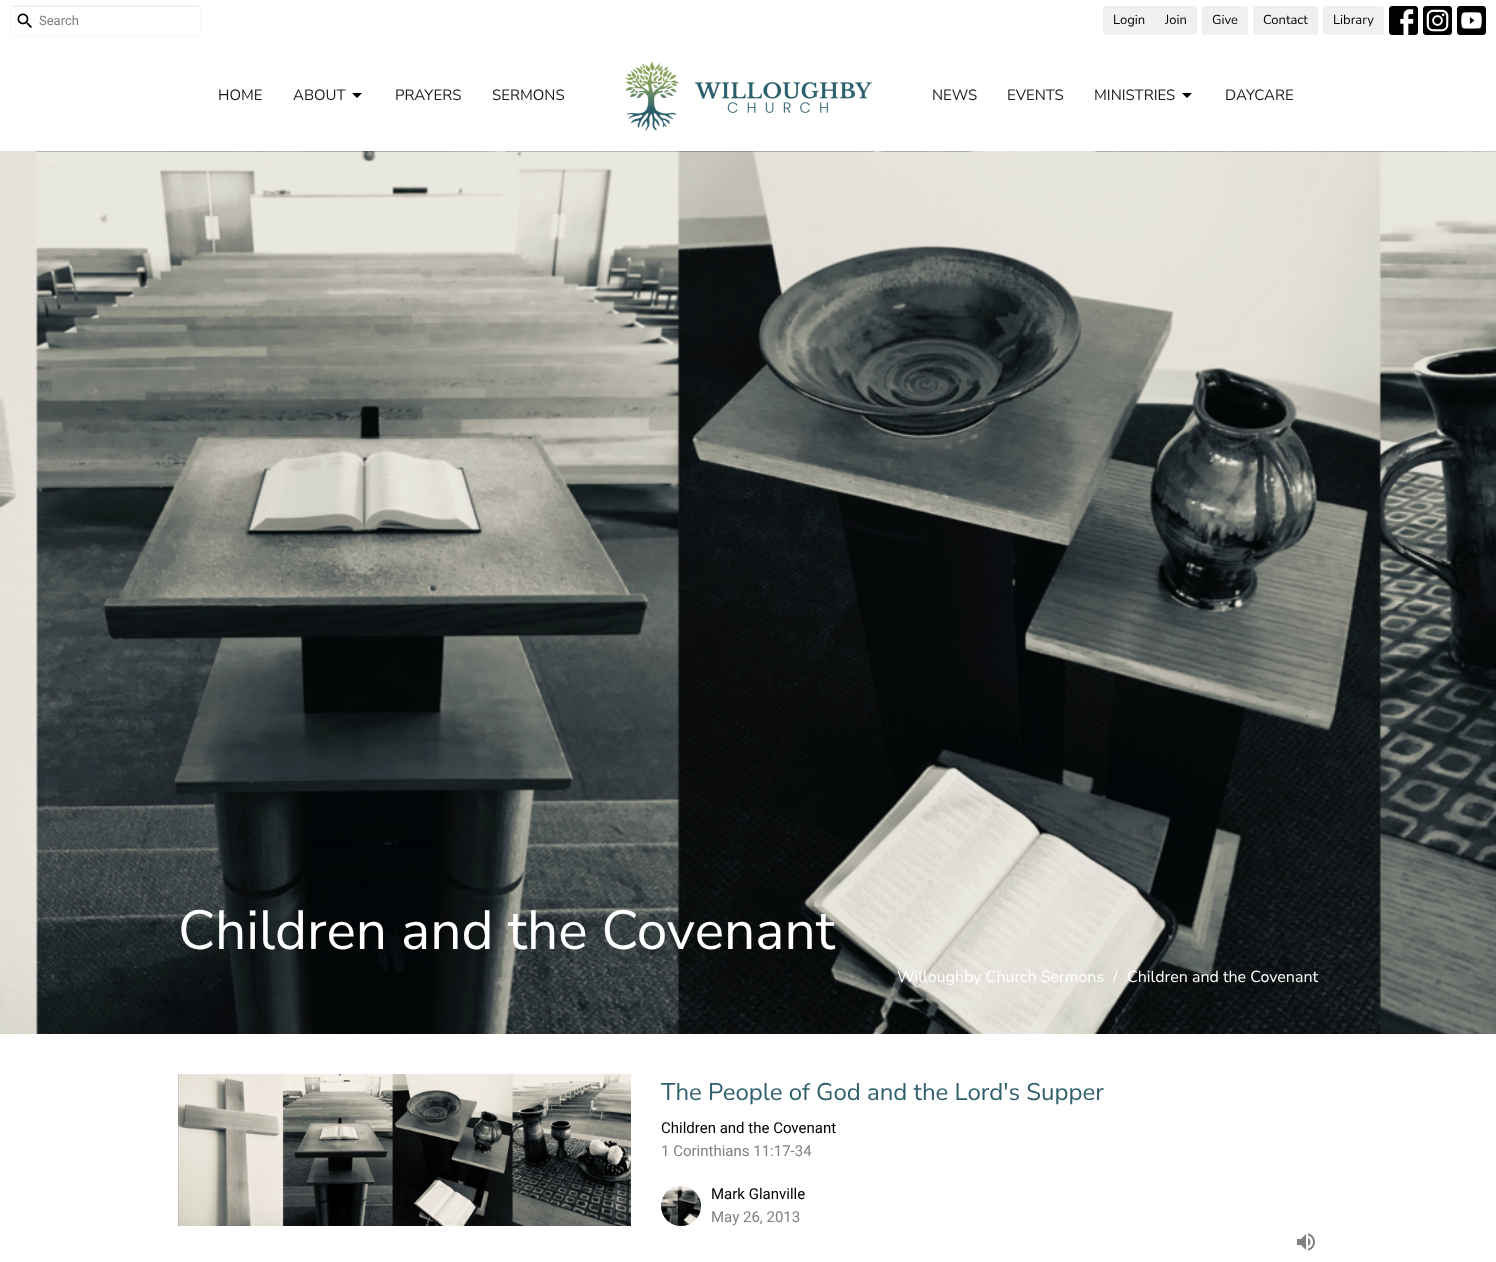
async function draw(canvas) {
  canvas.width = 1496;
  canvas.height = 1262;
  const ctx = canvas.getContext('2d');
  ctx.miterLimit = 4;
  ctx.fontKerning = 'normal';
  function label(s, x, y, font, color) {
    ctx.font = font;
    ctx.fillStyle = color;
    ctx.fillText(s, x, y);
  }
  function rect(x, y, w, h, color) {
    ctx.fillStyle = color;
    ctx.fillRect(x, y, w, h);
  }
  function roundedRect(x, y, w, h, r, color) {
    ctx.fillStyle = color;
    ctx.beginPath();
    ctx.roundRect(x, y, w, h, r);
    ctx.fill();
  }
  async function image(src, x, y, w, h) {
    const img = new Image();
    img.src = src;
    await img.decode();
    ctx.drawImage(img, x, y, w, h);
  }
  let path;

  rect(0, 0, 1496, 1262, '#fff');
  ctx.fillStyle = '#ececec';
  path = new Path2D('M13 7H198C199 7 200 8 200 9V8C200 7 199 6 198 6H13C12 6 11 7 11 8V9C11 8 12 7 13 7Z');
  ctx.fill(path);
  ctx.beginPath();
  ctx.roundRect(10.5, 5.5, 190, 30, 2.5);
  ctx.strokeStyle = '#f7f7f7';
  ctx.stroke();
  await image('assets/img1.png', 17, 13, 15, 15);
  label('Search', 39, 25, '13px Roboto', '#808080');
  ctx.fillStyle = '#f0f0f0';
  ctx.beginPath();
  ctx.roundRect(1103, 6, 52, 29, [3, 0, 0, 3]);
  ctx.fill();
  label('Login', 1113, 24, '13px Nunito Sans', '#000');
  ctx.fillStyle = '#f0f0f0';
  ctx.beginPath();
  ctx.roundRect(1155, 6, 42, 29, [0, 3, 3, 0]);
  ctx.fill();
  label('Join', 1165, 24, '13px Nunito Sans', '#000');
  roundedRect(1202, 6, 46, 29, 3, '#f0f0f0');
  label('Give', 1212, 24, '13px Nunito Sans', '#000');
  roundedRect(1253, 6, 65, 29, 3, '#f0f0f0');
  label('Contact', 1263, 24, '13px Nunito Sans', '#000');
  roundedRect(1323, 6, 61, 29, 3, '#f0f0f0');
  label('Library', 1333, 24, '13px Nunito Sans', '#000');
  await image('assets/img2.png', 1389, 6, 29, 29);
  await image('assets/img3.png', 1423, 6, 29, 29);
  await image('assets/img4.png', 1457, 6, 29, 29);
  label('HOME', 218, 100, '15px Nunito Sans', '#1a1a1a');
  label('ABOUT', 293, 100, '15px Nunito Sans', '#1a1a1a');
  ctx.fillStyle = '#000';
  path = new Path2D('M352 93L357 98L362 93Z');
  ctx.fill(path);
  label('PRAYERS', 395, 100, '15px Nunito Sans', '#1a1a1a');
  label('SERMONS', 492, 100, '15px Nunito Sans', '#1a1a1a');
  await image('assets/img5.png', 625, 61, 247, 70);
  label('NEWS', 932, 100, '15px Nunito Sans', '#1a1a1a');
  label('EVENTS', 1007, 100, '15px Nunito Sans', '#1a1a1a');
  label('MINISTRIES', 1094, 100, '15px Nunito Sans', '#1a1a1a');
  ctx.fillStyle = '#000';
  path = new Path2D('M1182 93L1187 98L1192 93Z');
  ctx.fill(path);
  label('DAYCARE', 1225, 100, '15px Nunito Sans', '#1a1a1a');
  await image('assets/img6.png', 0, 151, 1496, 883);
  label('Children and the Covenant', 178, 949, '55px Nunito Sans', '#fff');
  label('Willoughby Church Sermons', 897, 982, '16px Nunito Sans', '#fff');
  label('/', 1113, 982, '16px Nunito Sans', '#fff');
  label('Children and the Covenant', 1127, 982, '16px Nunito Sans', '#fff');
  await image('assets/img7.png', 178, 1074, 453, 152);
  label('The People of God and the Lord\'s Supper', 661, 1100, '24px Nunito Sans', '#2f5f6b');
  label('Children and the Covenant', 661, 1133, '15px Roboto', '#000');
  label('1 Corinthians 11:17-34', 661, 1156, '15px Roboto', '#808080');
  await image('assets/img8.png', 661, 1186, 40, 40);
  label('Mark Glanville', 711, 1199, '15px Roboto', '#000');
  label('May 26, 2013', 711, 1222, '15px Roboto', '#808080');
  await image('assets/img9.png', 1297, 1233, 18, 18);
}

draw(document.querySelector('canvas'));
